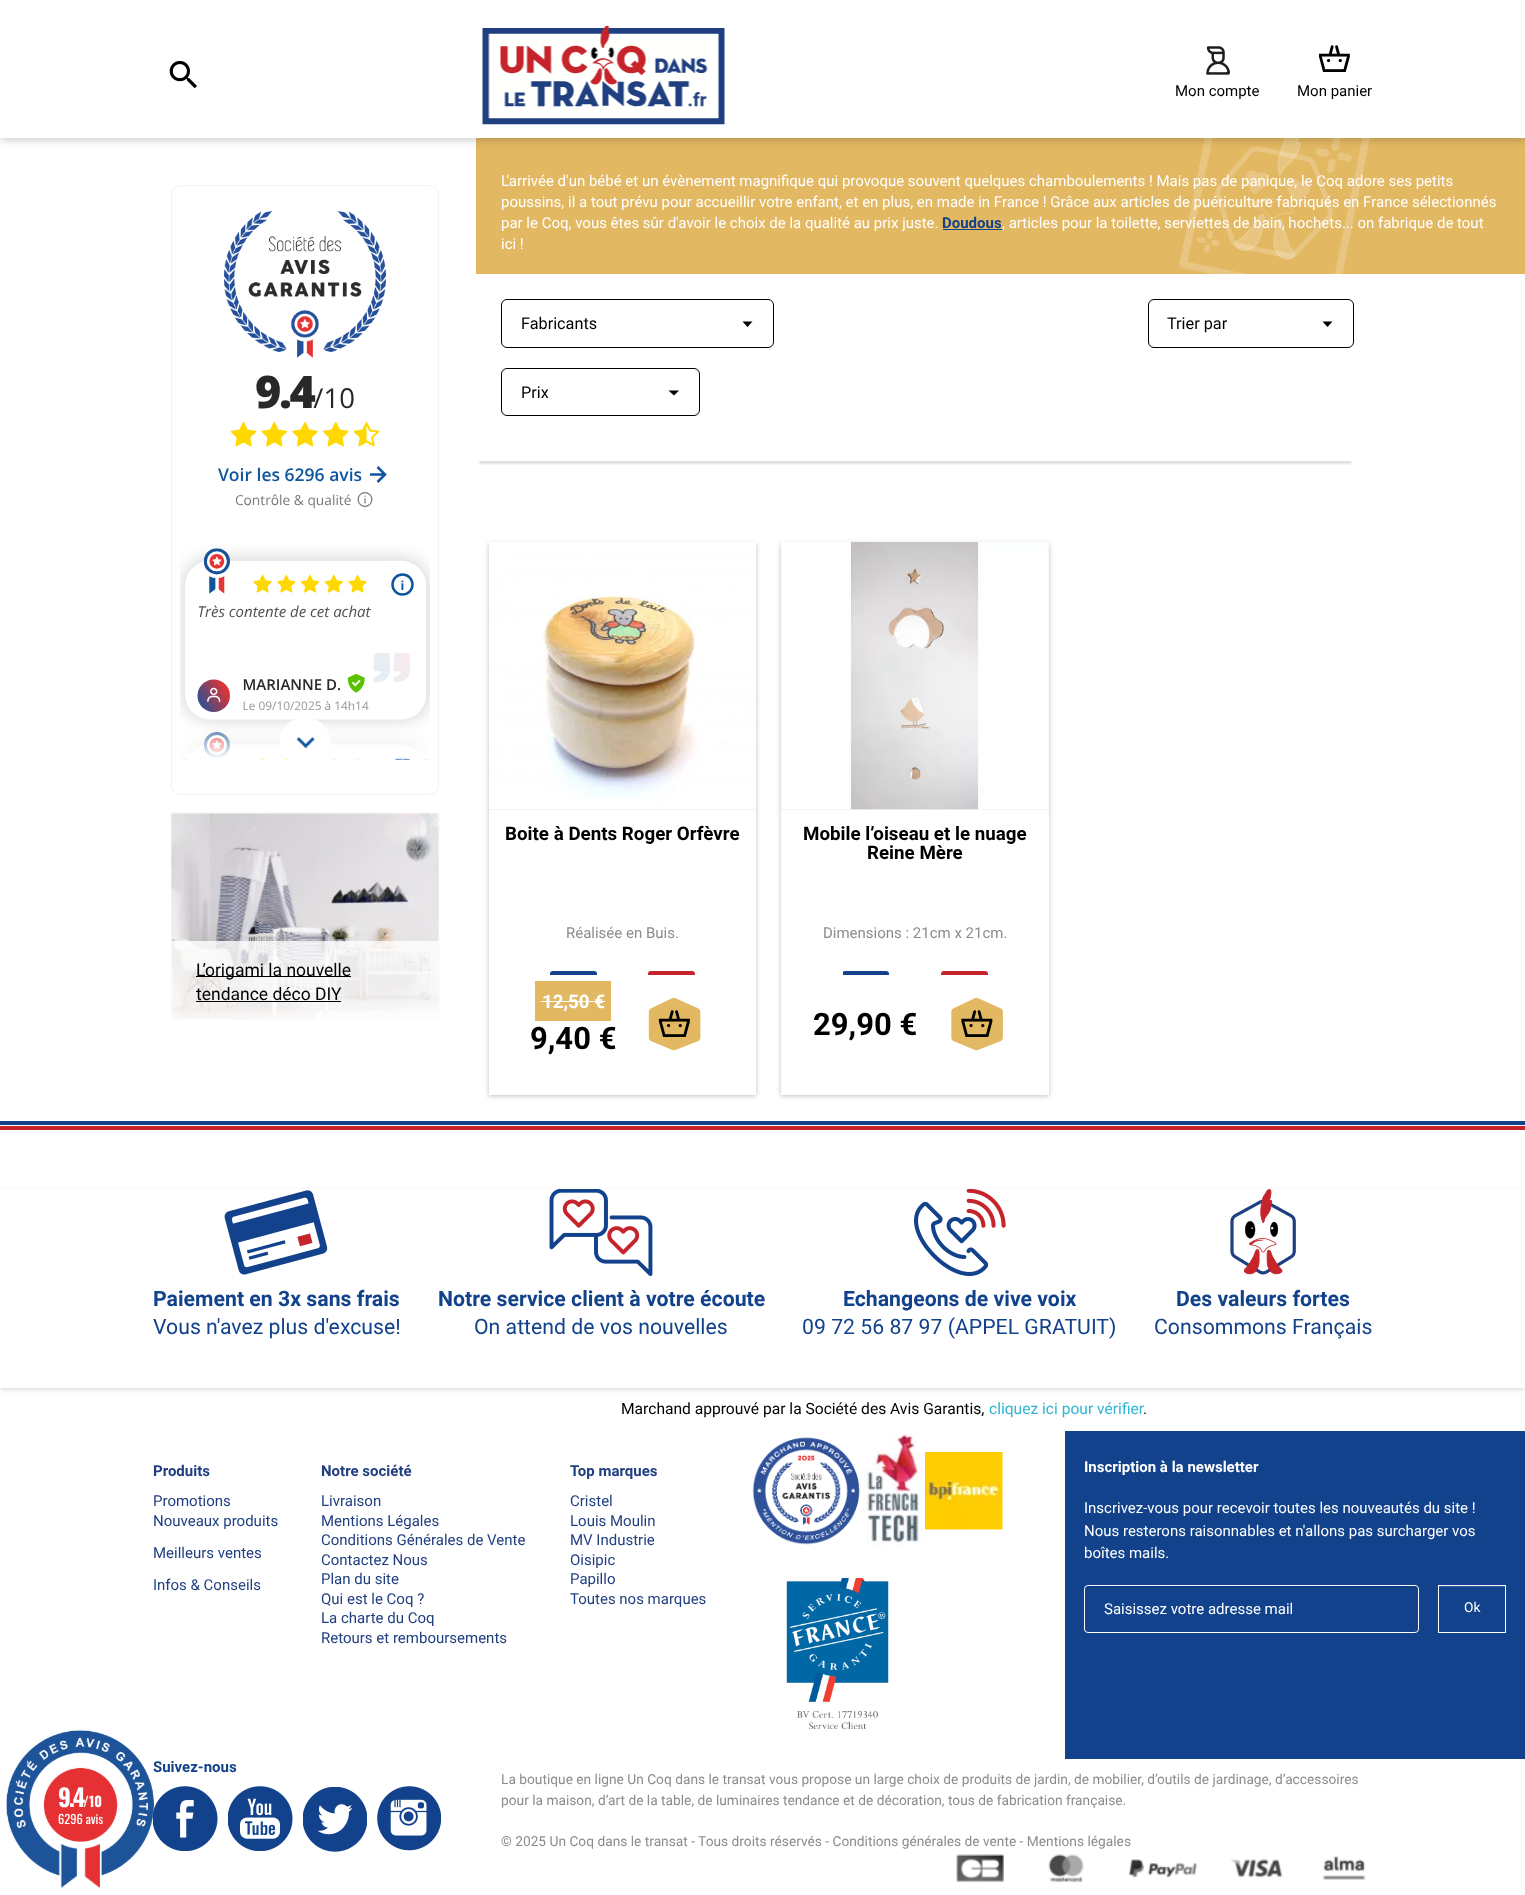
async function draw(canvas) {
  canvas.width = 1525;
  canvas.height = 1895;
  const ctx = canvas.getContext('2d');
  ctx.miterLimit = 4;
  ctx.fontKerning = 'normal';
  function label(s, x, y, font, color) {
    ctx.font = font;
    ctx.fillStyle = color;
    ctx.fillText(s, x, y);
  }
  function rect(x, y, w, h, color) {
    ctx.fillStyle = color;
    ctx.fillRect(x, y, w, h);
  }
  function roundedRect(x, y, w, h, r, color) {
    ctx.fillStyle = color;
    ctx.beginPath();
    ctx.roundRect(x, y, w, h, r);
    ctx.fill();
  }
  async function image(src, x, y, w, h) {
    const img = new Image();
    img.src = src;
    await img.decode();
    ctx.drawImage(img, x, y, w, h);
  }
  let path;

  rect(0, 0, 1525, 1895, '#fff');
  label('Suivez-nous', 153, 1772, 'bold 15px Roboto', '#11428b');
  await image('assets/img21.png', 153, 1786, 65, 65);
  await image('assets/img1.png', 6, 1730, 148, 158);
  ctx.letterSpacing = '-2px';
  label('9.4', 58, 1807, 'bold 24px Oswald', '#fff');
  ctx.letterSpacing = '0px';
  label('/10', 83, 1807, 'bold 14px Oswald', '#fff');
  label('6296 avis', 58, 1824, '12.5px Oswald', '#fff');
  rect(476, 138, 1049, 136, '#e3b862');
  await image('assets/img8.png', 1179, 138, 191, 136);
  ctx.fillStyle = '#00000033';
  ctx.filter = 'blur(4px)';
  ctx.beginPath();
  ctx.rect(0, 3, 1525, 137);
  ctx.fill();
  ctx.filter = 'none';
  rect(0, 0, 1525, 138, '#fff');
  await image('assets/img2.png', 169, 60, 28, 29);
  await image('assets/img3.png', 482, 25, 243, 100);
  await image('assets/img4.png', 1206, 46, 24, 29);
  label('Mon compte', 1175, 96, '15px Roboto', '#000');
  await image('assets/img5.png', 1319, 45, 31, 27);
  label('Mon panier', 1297, 96, '15px Roboto', '#000');
  ctx.beginPath();
  ctx.roundRect(171.5, 185.5, 267, 609, 9.5);
  ctx.strokeStyle = '#f2f2f2';
  ctx.stroke();
  await image('assets/img6.png', 180, 211, 250, 549);
  await image('assets/img7.png', 171, 812, 269, 208);
  rect(171, 941, 268, 79, '#ffffffcc');
  rect(196, 976, 155, 1, '#000');
  label('L’origami la nouvelle', 196, 976, '17.5px Roboto', '#000');
  label('tendance déco DIY', 196, 1000, '17.5px Roboto', '#000');
  rect(196, 1001, 145, 1, '#000');
  label('L\'arrivée d\'un bébé et un évènement magnifique qui provoque souvent quelques chamboulements ! Mais pas de panique, le Coq adore ses petits', 501, 186, '15px Roboto', '#fff');
  label('poussins, il a tout prévu pour accueillir votre enfant, et en plus, en made in France ! Grâce aux articles de puériculture fabriqués en France sélectionnés', 501, 207, '15px Roboto', '#fff');
  label('par le Coq, vous êtes sûr d\'avoir le choix de la qualité au prix juste.', 501, 228, '15px Roboto', '#fff');
  label('Doudous', 942, 228, 'bold 15px Roboto', '#11428b');
  rect(943, 229, 60, 1, '#11428b');
  label(', articles pour la toilette, serviettes de bain, hochets... on fabrique de tout', 1002, 228, '15px Roboto', '#fff');
  label('ici !', 501, 249, '15px Roboto', '#fff');
  ctx.save();
  ctx.beginPath();
  ctx.rect(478, 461, 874, 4);
  ctx.clip();
  ctx.fillStyle = '#00000021';
  ctx.filter = 'blur(1px)';
  ctx.beginPath();
  ctx.rect(479, 281, 872, 183);
  ctx.fill();
  ctx.filter = 'none';
  ctx.restore();
  ctx.beginPath();
  ctx.roundRect(501.5, 299.5, 272, 48, 5.5);
  ctx.strokeStyle = '#000';
  ctx.stroke();
  label('Fabricants', 521, 329, '16.25px Roboto', '#000');
  path = new Path2D('M742.5 321.5H752.5L747.5 327Z');
  ctx.fill(path);
  ctx.beginPath();
  ctx.roundRect(501.5, 368.5, 198, 47, 5.5);
  ctx.stroke();
  label('Prix', 521, 398, '16.25px Roboto', '#000');
  path = new Path2D('M668.5 390.5H679L674 395.5Z');
  ctx.fill(path);
  ctx.beginPath();
  ctx.roundRect(1148.5, 299.5, 205, 48, 5.5);
  ctx.stroke();
  label('Trier par', 1167, 329, '16.25px "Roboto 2"', '#000');
  path = new Path2D('M1322.5 321.5H1332.5L1327.5 327Z');
  ctx.fill(path);
  ctx.save();
  path = new Path2D('M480 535H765V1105H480ZM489 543H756V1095H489Z');
  ctx.clip(path, 'evenodd');
  ctx.fillStyle = '#00000040';
  ctx.filter = 'blur(2.5px)';
  ctx.beginPath();
  ctx.rect(489, 544, 267, 552);
  ctx.fill();
  ctx.filter = 'none';
  ctx.restore();
  rect(489, 809, 267, 1, '#f2f2f2');
  await image('assets/img9.png', 489, 542, 267, 267);
  label('Boite à Dents Roger Orfèvre', 505, 840, 'bold 18.75px Roboto', '#000');
  label('Réalisée en Buis.', 566, 938, '15px Roboto', '#8c8c8c');
  ctx.save();
  ctx.beginPath();
  ctx.rect(550, 971, 146, 4);
  ctx.clip();
  roundedRect(550, 971, 47, 6, 3, '#11428b');
  roundedRect(648, 971, 47, 6, 3, '#c5242b');
  ctx.restore();
  rect(535, 981, 76, 40, '#e3b862');
  label('12,50 €', 542, 1008, 'bold 18.75px Roboto', '#fff');
  rect(541, 1001, 64, 1, '#fff');
  label('9,40 €', 530, 1049, 'bold 31px Roboto', '#000');
  await image('assets/img10.png', 648, 997, 53, 54);
  ctx.save();
  path = new Path2D('M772 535H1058V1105H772ZM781 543H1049V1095H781Z');
  ctx.clip(path, 'evenodd');
  ctx.fillStyle = '#00000040';
  ctx.filter = 'blur(2.5px)';
  ctx.beginPath();
  ctx.rect(781, 544, 268, 552);
  ctx.fill();
  ctx.filter = 'none';
  ctx.restore();
  rect(781, 543, 268, 267, '#0000000d');
  await image('assets/img11.png', 781, 542, 268, 268);
  rect(781, 810, 268, 149, '#ffffffcc');
  label('Mobile l’oiseau et le nuage', 803, 840, 'bold 18.75px Roboto', '#000');
  label('Reine Mère', 867, 859, 'bold 18.75px Roboto', '#000');
  label('Dimensions : 21cm x 21cm.', 823, 938, '15px Roboto', '#8c8c8c');
  ctx.save();
  ctx.beginPath();
  ctx.rect(843, 971, 146, 4);
  ctx.clip();
  roundedRect(842, 971, 47, 6, 3, '#11428b');
  roundedRect(941, 971, 47, 6, 3, '#c5242b');
  ctx.restore();
  label('29,90 €', 813, 1035, 'bold 31px Roboto', '#000');
  await image('assets/img12.png', 951, 997, 52, 54);
  rect(0, 1121, 1525, 4, '#11428b');
  rect(0, 1126, 1525, 4, '#c5242b');
  ctx.save();
  path = new Path2D('M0 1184H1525V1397H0ZM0 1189H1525V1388H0Z');
  ctx.clip(path, 'evenodd');
  ctx.fillStyle = '#00000021';
  ctx.filter = 'blur(2px)';
  ctx.beginPath();
  ctx.rect(0, 1191, 1525, 199);
  ctx.fill();
  ctx.filter = 'none';
  ctx.restore();
  await image('assets/img13.png', 224, 1190, 104, 85);
  label('Paiement en 3x sans frais', 153, 1306, 'bold 21.25px Roboto', '#11428b');
  label('Vous n\'avez plus d\'excuse!', 153, 1334, '21.25px Roboto', '#11428b');
  await image('assets/img14.png', 549, 1189, 104, 87);
  label('Notre service client à votre écoute', 438, 1306, 'bold 21.25px Roboto', '#11428b');
  label('On attend de vos nouvelles', 474, 1334, '21.25px Roboto', '#11428b');
  await image('assets/img15.png', 914, 1189, 92, 87);
  label('Echangeons de vive voix', 843, 1306, 'bold 21.25px Roboto', '#11428b');
  label('09 72 56 87 97 (APPEL GRATUIT)', 802, 1334, '21.25px Roboto', '#11428b');
  await image('assets/img16.png', 1230, 1189, 66, 86);
  label('Des valeurs fortes', 1176, 1306, 'bold 21.25px Roboto', '#11428b');
  label('Consommons Français', 1154, 1334, '21.25px Roboto', '#11428b');
  label('Marchand approuvé par la Société des Avis Garantis,', 621, 1414, '15.6px "Roboto 2"', '#000');
  label('cliquez ici pour vérifier', 989, 1414, '15.6px "Roboto 2"', '#2fb5d2');
  label('.', 1143, 1414, '15.6px "Roboto 2"', '#000');
  label('Produits', 153, 1476, 'bold 15px Roboto', '#203f80');
  label('Promotions', 153, 1506, '15px "Roboto 2"', '#203f80');
  label('Nouveaux produits', 153, 1526, '15px "Roboto 2"', '#203f80');
  label('Meilleurs ventes', 153, 1558, '15px "Roboto 2"', '#203f80');
  label('Infos & Conseils', 153, 1590, '15px Roboto', '#203f80');
  label('Notre société', 321, 1476, 'bold 15px Roboto', '#203f80');
  label('Livraison', 321, 1506, '15px "Roboto 2"', '#203f80');
  label('Mentions Légales', 321, 1526, '15px "Roboto 2"', '#203f80');
  label('Conditions Générales de Vente', 321, 1545, '15px "Roboto 2"', '#203f80');
  label('Contactez Nous', 321, 1565, '15px "Roboto 2"', '#203f80');
  label('Plan du site', 321, 1584, '15px "Roboto 2"', '#203f80');
  label('Qui est le Coq ?', 321, 1604, '15px "Roboto 2"', '#203f80');
  label('La charte du Coq', 321, 1623, '15px "Roboto 2"', '#203f80');
  label('Retours et remboursements', 321, 1643, '15px "Roboto 2"', '#203f80');
  label('Top marques', 570, 1476, 'bold 15px Roboto', '#203f80');
  label('Cristel', 570, 1506, '15px "Roboto 2"', '#203f80');
  label('Louis Moulin', 570, 1526, '15px "Roboto 2"', '#203f80');
  label('MV Industrie', 570, 1545, '15px "Roboto 2"', '#203f80');
  label('Oisipic', 570, 1565, '15px "Roboto 2"', '#203f80');
  label('Papillo', 570, 1584, '15px "Roboto 2"', '#203f80');
  label('Toutes nos marques', 570, 1604, '15px Roboto', '#203f80');
  await image('assets/img17.png', 752, 1437, 108, 108);
  await image('assets/img18.png', 863, 1431, 60, 115);
  await image('assets/img19.png', 925, 1452, 78, 78);
  await image('assets/img20.png', 786, 1578, 103, 151);
  rect(1065, 1431, 460, 328, '#11428b');
  label('Inscription à la newsletter', 1084, 1472, 'bold 15px Roboto', '#fff');
  label('Inscrivez-vous pour recevoir toutes les nouveautés du site !', 1084, 1513, '15px Roboto', '#fff');
  label('Nous resterons raisonnables et n\'allons pas surcharger vos', 1084, 1536, '15px Roboto', '#fff');
  label('boîtes mails.', 1084, 1558, '15px Roboto', '#fff');
  ctx.fillStyle = '#103d81';
  path = new Path2D('M1088 1588H1415C1416 1588 1418 1589 1418 1590V1587L1416 1586H1088C1085 1586 1085 1588 1085 1590C1085 1589 1086 1588 1088 1588Z');
  ctx.fill(path);
  ctx.beginPath();
  ctx.roundRect(1084.5, 1585.5, 334, 47, 3.5);
  ctx.strokeStyle = '#fff';
  ctx.stroke();
  label('Saisissez votre adresse mail', 1104, 1614, '15px "Roboto 2"', '#fff');
  rect(1439, 1586, 66, 1, '#355e9c');
  ctx.strokeRect(1438.5, 1585.5, 67, 47);
  label('Ok', 1464, 1612, '13.75px Roboto', '#fff');
  await image('assets/img22.png', 228, 1786, 65, 65);
  await image('assets/img23.png', 303, 1787, 64, 65);
  await image('assets/img24.png', 377, 1786, 64, 65);
  label('La boutique en ligne Un Coq dans le transat vous propose un large choix de produits de jardin, de mobilier, d’outils de jardinage, d’accessoires', 501, 1784, '13.75px Roboto', '#8c8c8c');
  label('pour la maison, d’art de la table, de luminaires tendance et de décoration, tous de fabrication française.', 501, 1805, '13.75px Roboto', '#8c8c8c');
  label('© 2025 Un Coq dans le transat - Tous droits réservés - Conditions générales de vente - Mentions légales', 501, 1846, '13.75px Roboto', '#8c8c8c');
  await image('assets/img25.png', 956, 1854, 410, 29);
}

draw(document.querySelector('canvas'));
